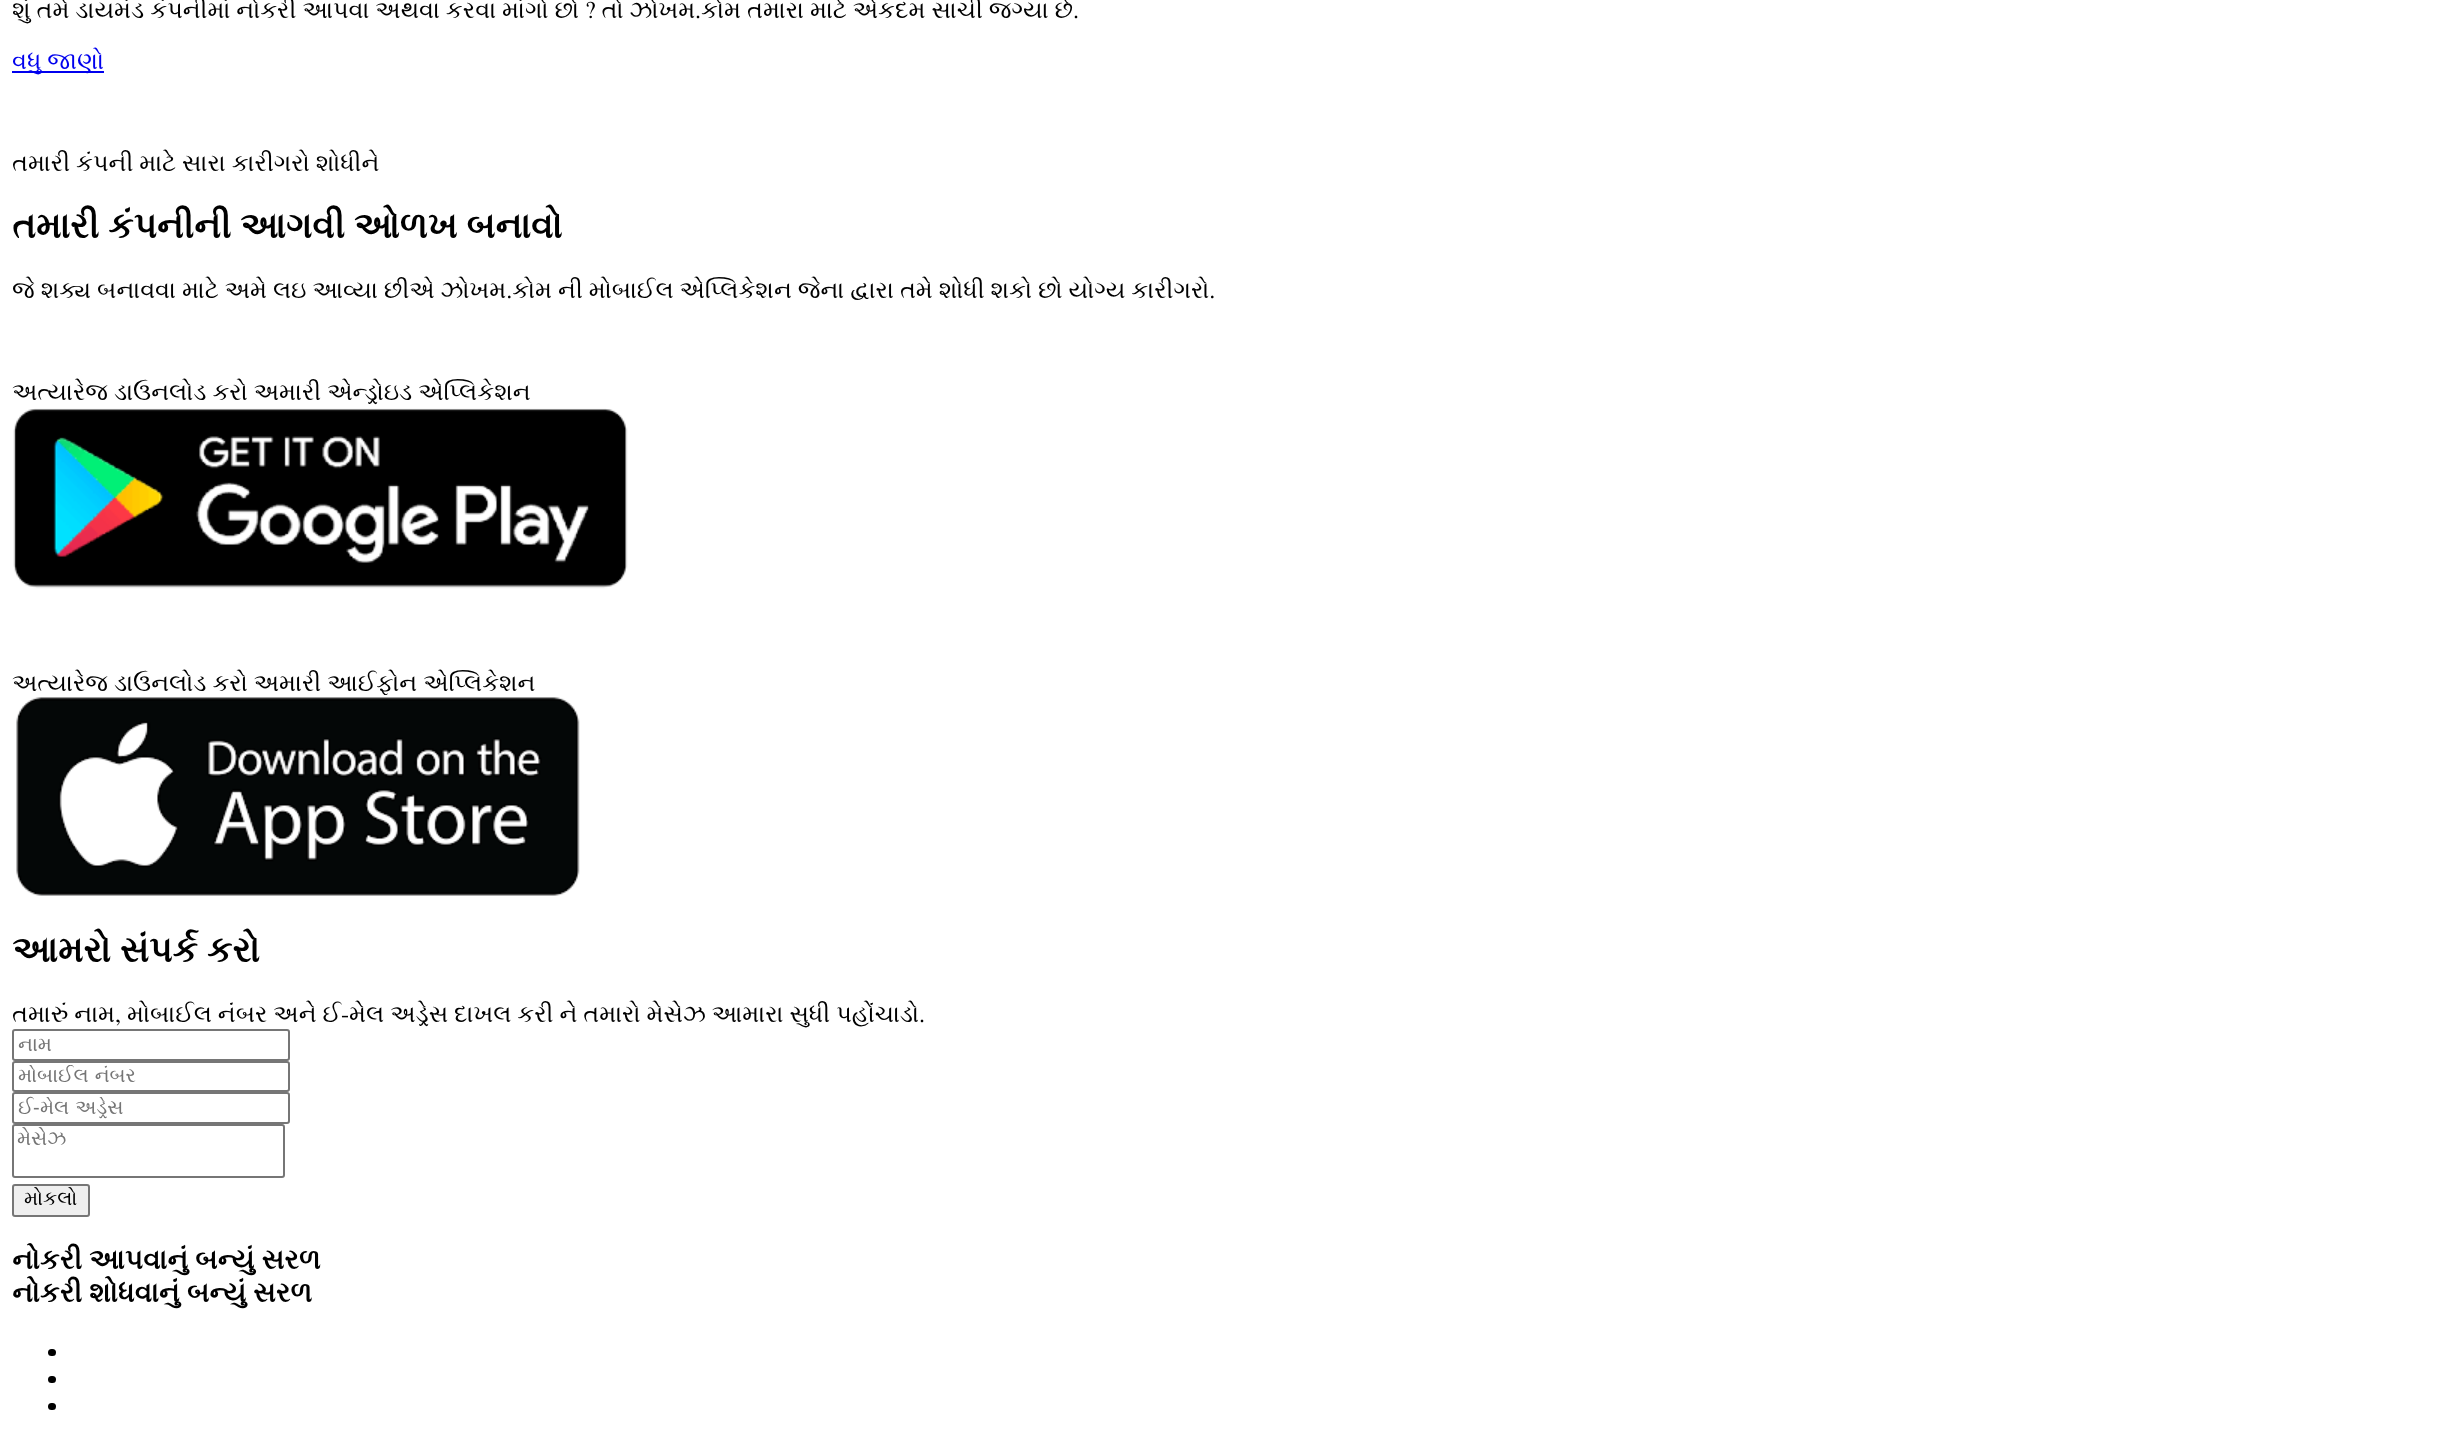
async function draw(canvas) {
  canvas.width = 2437;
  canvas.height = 1442;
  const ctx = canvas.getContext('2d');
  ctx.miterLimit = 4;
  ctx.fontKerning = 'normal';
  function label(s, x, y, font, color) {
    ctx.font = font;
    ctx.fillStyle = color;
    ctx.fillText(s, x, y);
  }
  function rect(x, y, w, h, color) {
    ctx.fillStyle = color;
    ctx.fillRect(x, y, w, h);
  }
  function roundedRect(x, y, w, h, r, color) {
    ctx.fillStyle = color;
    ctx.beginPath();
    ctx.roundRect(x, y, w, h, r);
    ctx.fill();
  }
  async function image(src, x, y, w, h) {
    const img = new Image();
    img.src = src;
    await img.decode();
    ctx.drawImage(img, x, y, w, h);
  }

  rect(0, 0, 2437, 1442, '#fff');
  label('શું તમે ડાયમંડ કંપનીમાં નોકરી આપવા અથવા કરવા માંગો છો ? તો ઝોખમ.કોમ તમારા માટે એકદમ સાચી જગ્યા છે.', 12, 18, '24px FreeSerif', '#000');
  rect(12, 71, 92, 2, '#00e');
  label('વધુ જાણો', 12, 69, '24px FreeSerif', '#00e');
  label('તમારી કંપની માટે સારા કારીગરો શોધીને', 12, 171, '24px FreeSerif', '#000');
  label('તમારી કંપનીની આગવી ઓળખ બનાવો', 12, 238, 'bold 36px FreeSerif', '#000');
  label('જે શક્ય બનાવવા માટે અમે લઇ આવ્યા છીએ ઝોખમ.કોમ ની મોબાઈલ એપ્લિકેશન જેના દ્વારા તમે શોધી શકો છો યોગ્ય કારીગરો.', 12, 298, '24px FreeSerif', '#000');
  label('અત્યારેજ ડાઉનલોડ કરો અમારી એન્ડ્રોઇડ એપ્લિકેશન', 12, 400, '24px FreeSerif', '#000');
  await image('assets/img1.png', 13, 408, 615, 181);
  label('અત્યારેજ ડાઉનલોડ કરો અમારી આઈફોન એપ્લિકેશન', 12, 691, '24px FreeSerif', '#000');
  await image('assets/img2.png', 16, 697, 564, 199);
  label('આમરો સંપર્ક કરો', 12, 962, 'bold 36px FreeSerif', '#000');
  label('તમારું નામ, મોબાઈલ નંબર અને ઈ-મેલ અડ્રેસ દાખલ કરી ને તમારો મેસેઝ આમારા સુધી પહોંચાડો.', 12, 1022, '24px FreeSerif', '#000');
  ctx.beginPath();
  ctx.roundRect(13, 1030, 276, 30, 2);
  ctx.strokeStyle = '#767676';
  ctx.lineWidth = 2;
  ctx.stroke();
  label('નામ', 18, 1051, '20px FreeSerif', '#757575');
  ctx.beginPath();
  ctx.roundRect(13, 1062, 276, 29, 2);
  ctx.stroke();
  ctx.save();
  ctx.beginPath();
  ctx.rect(18, 1065, 266, 24);
  ctx.clip();
  ctx.wordSpacing = '1px';
  label('મોબાઈલ નંબર', 18, 1082, '20px FreeSerif', '#757575');
  ctx.restore();
  ctx.beginPath();
  ctx.roundRect(13, 1093, 276, 30, 2);
  ctx.stroke();
  label('ઈ', 18, 1114, '20px FreeSerif', '#757575');
  label('-', 33, 1114, '20px Liberation Sans', '#757575');
  ctx.save();
  ctx.beginPath();
  ctx.rect(18, 1097, 266, 24);
  ctx.clip();
  ctx.wordSpacing = '1px';
  label('મેલ અડ્રેસ', 40, 1114, '20px FreeSerif', '#757575');
  ctx.restore();
  ctx.beginPath();
  ctx.roundRect(13, 1125, 271, 52, 2);
  ctx.stroke();
  ctx.save();
  ctx.beginPath();
  ctx.rect(14, 1125, 270, 51);
  ctx.clip();
  label('મેસેઝ', 17, 1145, '20px FreeSerif', '#757575');
  ctx.restore();
  ctx.fillStyle = '#efefef';
  ctx.beginPath();
  ctx.roundRect(13, 1185, 76, 31, 2);
  ctx.fill();
  ctx.stroke();
  label('મોકલો', 24, 1205, '20px FreeSerif', '#000');
  label('નોકરી આપવાનું બન્યું સરળ', 12, 1269, 'bold 28px FreeSerif', '#000');
  label('નોકરી શોધવાનું બન્યું સરળ', 12, 1302, 'bold 28px FreeSerif', '#000');
  roundedRect(48, 1349, 8, 7, 3.5, '#000');
  roundedRect(48, 1376, 8, 7, 3.5, '#000');
  roundedRect(48, 1403, 8, 7, 3.5, '#000');
}

draw(document.querySelector('canvas'));
